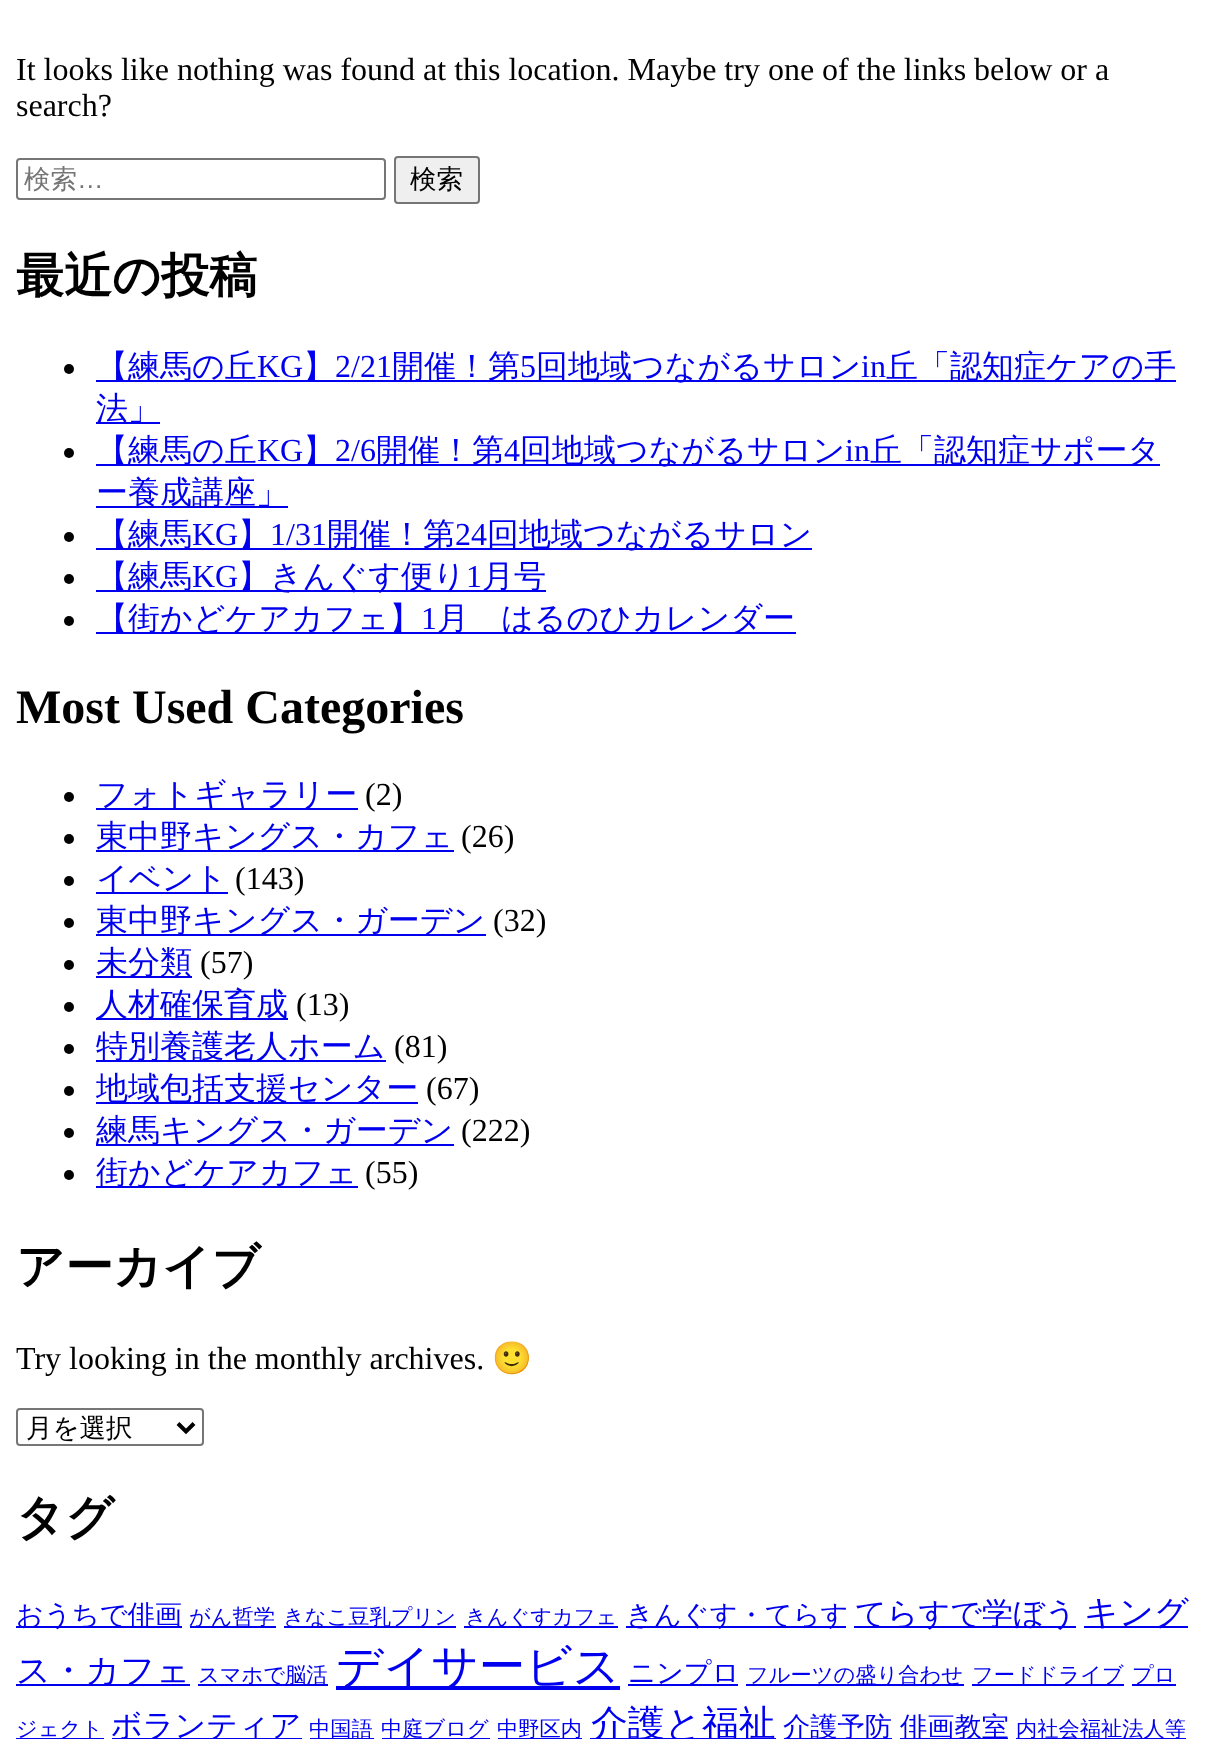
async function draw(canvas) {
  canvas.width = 1208;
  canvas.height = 1739;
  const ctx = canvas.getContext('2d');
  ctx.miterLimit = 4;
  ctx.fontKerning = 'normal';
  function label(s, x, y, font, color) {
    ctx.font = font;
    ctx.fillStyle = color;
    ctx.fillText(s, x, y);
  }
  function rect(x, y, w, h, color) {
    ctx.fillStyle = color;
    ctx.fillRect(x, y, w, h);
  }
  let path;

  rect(0, 0, 1208, 1739, '#fff');
  label('It looks like nothing was found at this location. Maybe try one of the links below or a', 16, 80, '32px Liberation Serif', '#000');
  label('search?', 16, 116, '32px Liberation Serif', '#000');
  ctx.beginPath();
  ctx.roundRect(17, 159, 368, 40, 3);
  ctx.strokeStyle = '#767676';
  ctx.lineWidth = 2;
  ctx.stroke();
  label('検索', 24, 188, '500 26.5px WenQuanYi Zen Hei', '#757575');
  label('…', 77, 188, '26.5px Liberation Sans', '#757575');
  ctx.fillStyle = '#efefef';
  ctx.beginPath();
  ctx.roundRect(395, 157, 84, 46, 3);
  ctx.fill();
  ctx.stroke();
  label('検索', 410, 188, '500 26.5px WenQuanYi Zen Hei', '#000');
  label('最近の投稿', 16, 292, 'bold 48px WenQuanYi Zen Hei', '#000');
  ctx.beginPath();
  ctx.arc(69, 369, 5, 0, 2 * Math.PI);
  ctx.fill();
  rect(96, 380, 1080, 2, '#00e');
  label('【練馬の丘', 96, 377, '500 32px WenQuanYi Zen Hei', '#00e');
  label('KG', 257, 377, '32px Liberation Serif', '#00e');
  label('】', 303, 377, '500 32px WenQuanYi Zen Hei', '#00e');
  label('2/21', 335, 377, '32px Liberation Serif', '#00e');
  label('開催！第', 392, 377, '500 32px WenQuanYi Zen Hei', '#00e');
  label('5', 520, 377, '32px Liberation Serif', '#00e');
  label('回地域つながるサロン', 536, 377, '500 32px WenQuanYi Zen Hei', '#00e');
  label('in', 861, 377, '32px Liberation Serif', '#00e');
  label('丘「認知症ケアの手', 886, 377, '500 32px WenQuanYi Zen Hei', '#00e');
  rect(96, 422, 64, 2, '#00e');
  label('法」', 96, 419, '500 32px WenQuanYi Zen Hei', '#00e');
  ctx.fillStyle = '#000';
  ctx.beginPath();
  ctx.arc(69, 453, 5, 0, 2 * Math.PI);
  ctx.fill();
  rect(96, 464, 1064, 2, '#00e');
  label('【練馬の丘', 96, 461, '500 32px WenQuanYi Zen Hei', '#00e');
  label('KG', 257, 461, '32px Liberation Serif', '#00e');
  label('】', 303, 461, '500 32px WenQuanYi Zen Hei', '#00e');
  label('2/6', 335, 461, '32px Liberation Serif', '#00e');
  label('開催！第', 376, 461, '500 32px WenQuanYi Zen Hei', '#00e');
  label('4', 504, 461, '32px Liberation Serif', '#00e');
  label('回地域つながるサロン', 520, 461, '500 32px WenQuanYi Zen Hei', '#00e');
  label('in', 845, 461, '32px Liberation Serif', '#00e');
  label('丘「認知症サポータ', 870, 461, '500 32px WenQuanYi Zen Hei', '#00e');
  rect(96, 506, 192, 2, '#00e');
  label('ー養成講座」', 96, 503, '500 32px WenQuanYi Zen Hei', '#00e');
  ctx.fillStyle = '#000';
  ctx.beginPath();
  ctx.arc(69, 537, 5, 0, 2 * Math.PI);
  ctx.fill();
  rect(96, 548, 716, 2, '#00e');
  label('【練馬', 96, 545, '500 32px WenQuanYi Zen Hei', '#00e');
  label('KG', 192, 545, '32px Liberation Serif', '#00e');
  label('】', 238, 545, '500 32px WenQuanYi Zen Hei', '#00e');
  label('1/31', 270, 545, '32px Liberation Serif', '#00e');
  label('開催！第', 327, 545, '500 32px WenQuanYi Zen Hei', '#00e');
  label('24', 455, 545, '32px Liberation Serif', '#00e');
  label('回地域つながるサロン', 487, 545, '500 32px WenQuanYi Zen Hei', '#00e');
  ctx.fillStyle = '#000';
  ctx.beginPath();
  ctx.arc(69, 579, 5, 0, 2 * Math.PI);
  ctx.fill();
  rect(96, 590, 450, 2, '#00e');
  label('【練馬', 96, 587, '500 32px WenQuanYi Zen Hei', '#00e');
  label('KG', 192, 587, '32px Liberation Serif', '#00e');
  label('】きんぐす便り', 238, 587, '500 32px WenQuanYi Zen Hei', '#00e');
  label('1', 466, 587, '32px Liberation Serif', '#00e');
  label('月号', 482, 587, '500 32px WenQuanYi Zen Hei', '#00e');
  ctx.fillStyle = '#000';
  ctx.beginPath();
  ctx.arc(69, 621, 5, 0, 2 * Math.PI);
  ctx.fill();
  rect(96, 632, 700, 2, '#00e');
  label('【街かどケアカフェ】', 96, 629, '500 32px WenQuanYi Zen Hei', '#00e');
  label('1', 421, 629, '32px Liberation Serif', '#00e');
  label('月　はるのひカレンダー', 437, 629, '500 32px WenQuanYi Zen Hei', '#00e');
  label('Most Used Categories', 16, 723, 'bold 48px Liberation Serif', '#000');
  ctx.beginPath();
  ctx.arc(69, 797, 5, 0, 2 * Math.PI);
  ctx.fill();
  rect(96, 808, 262, 2, '#00e');
  label('フォトギャラリー', 96, 805, '500 32px WenQuanYi Zen Hei', '#00e');
  label('(2)', 365, 805, '32px Liberation Serif', '#000');
  ctx.beginPath();
  ctx.arc(69, 839, 5, 0, 2 * Math.PI);
  ctx.fill();
  rect(96, 850, 358, 2, '#00e');
  label('東中野キングス・カフェ', 96, 847, '500 32px WenQuanYi Zen Hei', '#00e');
  label('(26)', 461, 847, '32px Liberation Serif', '#000');
  ctx.beginPath();
  ctx.arc(69, 881, 5, 0, 2 * Math.PI);
  ctx.fill();
  rect(96, 892, 132, 2, '#00e');
  label('イベント', 96, 889, '500 32px WenQuanYi Zen Hei', '#00e');
  label('(143)', 235, 889, '32px Liberation Serif', '#000');
  ctx.beginPath();
  ctx.arc(69, 923, 5, 0, 2 * Math.PI);
  ctx.fill();
  rect(96, 934, 390, 2, '#00e');
  label('東中野キングス・ガーデン', 96, 931, '500 32px WenQuanYi Zen Hei', '#00e');
  label('(32)', 493, 931, '32px Liberation Serif', '#000');
  ctx.beginPath();
  ctx.arc(69, 965, 5, 0, 2 * Math.PI);
  ctx.fill();
  rect(96, 976, 96, 2, '#00e');
  label('未分類', 96, 973, '500 32px WenQuanYi Zen Hei', '#00e');
  label('(57)', 200, 973, '32px Liberation Serif', '#000');
  ctx.beginPath();
  ctx.arc(69, 1007, 5, 0, 2 * Math.PI);
  ctx.fill();
  rect(96, 1018, 192, 2, '#00e');
  label('人材確保育成', 96, 1015, '500 32px WenQuanYi Zen Hei', '#00e');
  label('(13)', 296, 1015, '32px Liberation Serif', '#000');
  ctx.beginPath();
  ctx.arc(69, 1049, 5, 0, 2 * Math.PI);
  ctx.fill();
  rect(96, 1060, 290, 2, '#00e');
  label('特別養護老人ホーム', 96, 1057, '500 32px WenQuanYi Zen Hei', '#00e');
  label('(81)', 394, 1057, '32px Liberation Serif', '#000');
  ctx.beginPath();
  ctx.arc(69, 1091, 5, 0, 2 * Math.PI);
  ctx.fill();
  rect(96, 1102, 322, 2, '#00e');
  label('地域包括支援センター', 96, 1099, '500 32px WenQuanYi Zen Hei', '#00e');
  label('(67)', 426, 1099, '32px Liberation Serif', '#000');
  ctx.beginPath();
  ctx.arc(69, 1133, 5, 0, 2 * Math.PI);
  ctx.fill();
  rect(96, 1144, 358, 2, '#00e');
  label('練馬キングス・ガーデン', 96, 1141, '500 32px WenQuanYi Zen Hei', '#00e');
  label('(222)', 461, 1141, '32px Liberation Serif', '#000');
  ctx.beginPath();
  ctx.arc(69, 1175, 5, 0, 2 * Math.PI);
  ctx.fill();
  rect(96, 1186, 262, 2, '#00e');
  label('街かどケアカフェ', 96, 1183, '500 32px WenQuanYi Zen Hei', '#00e');
  label('(55)', 365, 1183, '32px Liberation Serif', '#000');
  label('アーカイブ', 16, 1283, 'bold 48px WenQuanYi Zen Hei', '#000');
  label('Try looking in the monthly archives.', 16, 1369, '32px Liberation Serif', '#000');
  label('🙂', 492, 1369, '32px Noto Color Emoji', '#000');
  ctx.beginPath();
  ctx.roundRect(17, 1409, 186, 36, 3);
  ctx.stroke();
  path = new Path2D('M178 1423.5L186 1431.5L194 1423.5');
  ctx.strokeStyle = '#000';
  ctx.lineWidth = 4;
  ctx.stroke(path);
  label('月を選択', 26, 1437, '500 26.5px WenQuanYi Zen Hei', '#000');
  label('タグ', 16, 1534, 'bold 48px WenQuanYi Zen Hei', '#000');
  rect(16, 1626, 166, 2, '#00e');
  label('おうちで俳画', 16, 1624, '500 27.25px WenQuanYi Zen Hei', '#00e');
  rect(190, 1626, 86, 2, '#00e');
  label('がん哲学', 189, 1624, '500 21.25px WenQuanYi Zen Hei', '#00e');
  rect(284, 1626, 172, 2, '#00e');
  label('きなこ豆乳プリン', 283, 1624, '500 21.25px WenQuanYi Zen Hei', '#00e');
  rect(464, 1626, 154, 2, '#00e');
  label('きんぐすカフェ', 465, 1624, '500 21.25px WenQuanYi Zen Hei', '#00e');
  rect(626, 1626, 220, 2, '#00e');
  label('きんぐす・てらす', 626, 1624, '500 27.25px WenQuanYi Zen Hei', '#00e');
  rect(854, 1626, 222, 2, '#00e');
  label('てらすで学ぼう', 855, 1624, '500 31px WenQuanYi Zen Hei', '#00e');
  rect(1084, 1626, 104, 2, '#00e');
  label('キング', 1084, 1624, '500 34.25px WenQuanYi Zen Hei', '#00e');
  rect(16, 1684, 174, 2, '#00e');
  label('ス・カフェ', 16, 1682, '500 34.25px WenQuanYi Zen Hei', '#00e');
  rect(198, 1684, 130, 2, '#00e');
  label('スマホで脳活', 198, 1682, '500 21.25px WenQuanYi Zen Hei', '#00e');
  rect(336, 1686, 284, 4, '#00e');
  label('デイサービス', 336, 1682, '500 46.5px WenQuanYi Zen Hei', '#00e');
  rect(628, 1684, 110, 2, '#00e');
  label('ニンプロ', 628, 1682, '500 27.25px WenQuanYi Zen Hei', '#00e');
  rect(746, 1684, 218, 2, '#00e');
  label('フルーツの盛り合わせ', 747, 1682, '500 21.25px WenQuanYi Zen Hei', '#00e');
  rect(972, 1684, 152, 2, '#00e');
  label('フードドライブ', 972, 1682, '500 21.25px WenQuanYi Zen Hei', '#00e');
  rect(1132, 1684, 44, 2, '#00e');
  label('プロ', 1132, 1682, '500 21.25px WenQuanYi Zen Hei', '#00e');
  rect(16, 1738, 88, 1, '#00e');
  label('ジェクト', 16, 1736, '500 21.25px WenQuanYi Zen Hei', '#00e');
  rect(112, 1738, 190, 1, '#00e');
  label('ボランティア', 111, 1736, '500 31px WenQuanYi Zen Hei', '#00e');
  rect(310, 1738, 64, 1, '#00e');
  label('中国語', 309, 1736, '500 21.25px WenQuanYi Zen Hei', '#00e');
  rect(382, 1738, 108, 1, '#00e');
  label('中庭ブログ', 381, 1736, '500 21.25px WenQuanYi Zen Hei', '#00e');
  rect(498, 1738, 84, 1, '#00e');
  label('中野区内', 497, 1736, '500 21.25px WenQuanYi Zen Hei', '#00e');
  rect(590, 1738, 186, 1, '#00e');
  label('介護と福祉', 591, 1736, '500 36.75px WenQuanYi Zen Hei', '#00e');
  rect(784, 1738, 108, 1, '#00e');
  label('介護予防', 783, 1736, '500 27.25px WenQuanYi Zen Hei', '#00e');
  rect(900, 1738, 108, 1, '#00e');
  label('俳画教室', 900, 1736, '500 27.25px WenQuanYi Zen Hei', '#00e');
  rect(1016, 1738, 170, 1, '#00e');
  label('内社会福祉法人等', 1016, 1736, '500 21.25px WenQuanYi Zen Hei', '#00e');
}

draw(document.querySelector('canvas'));
